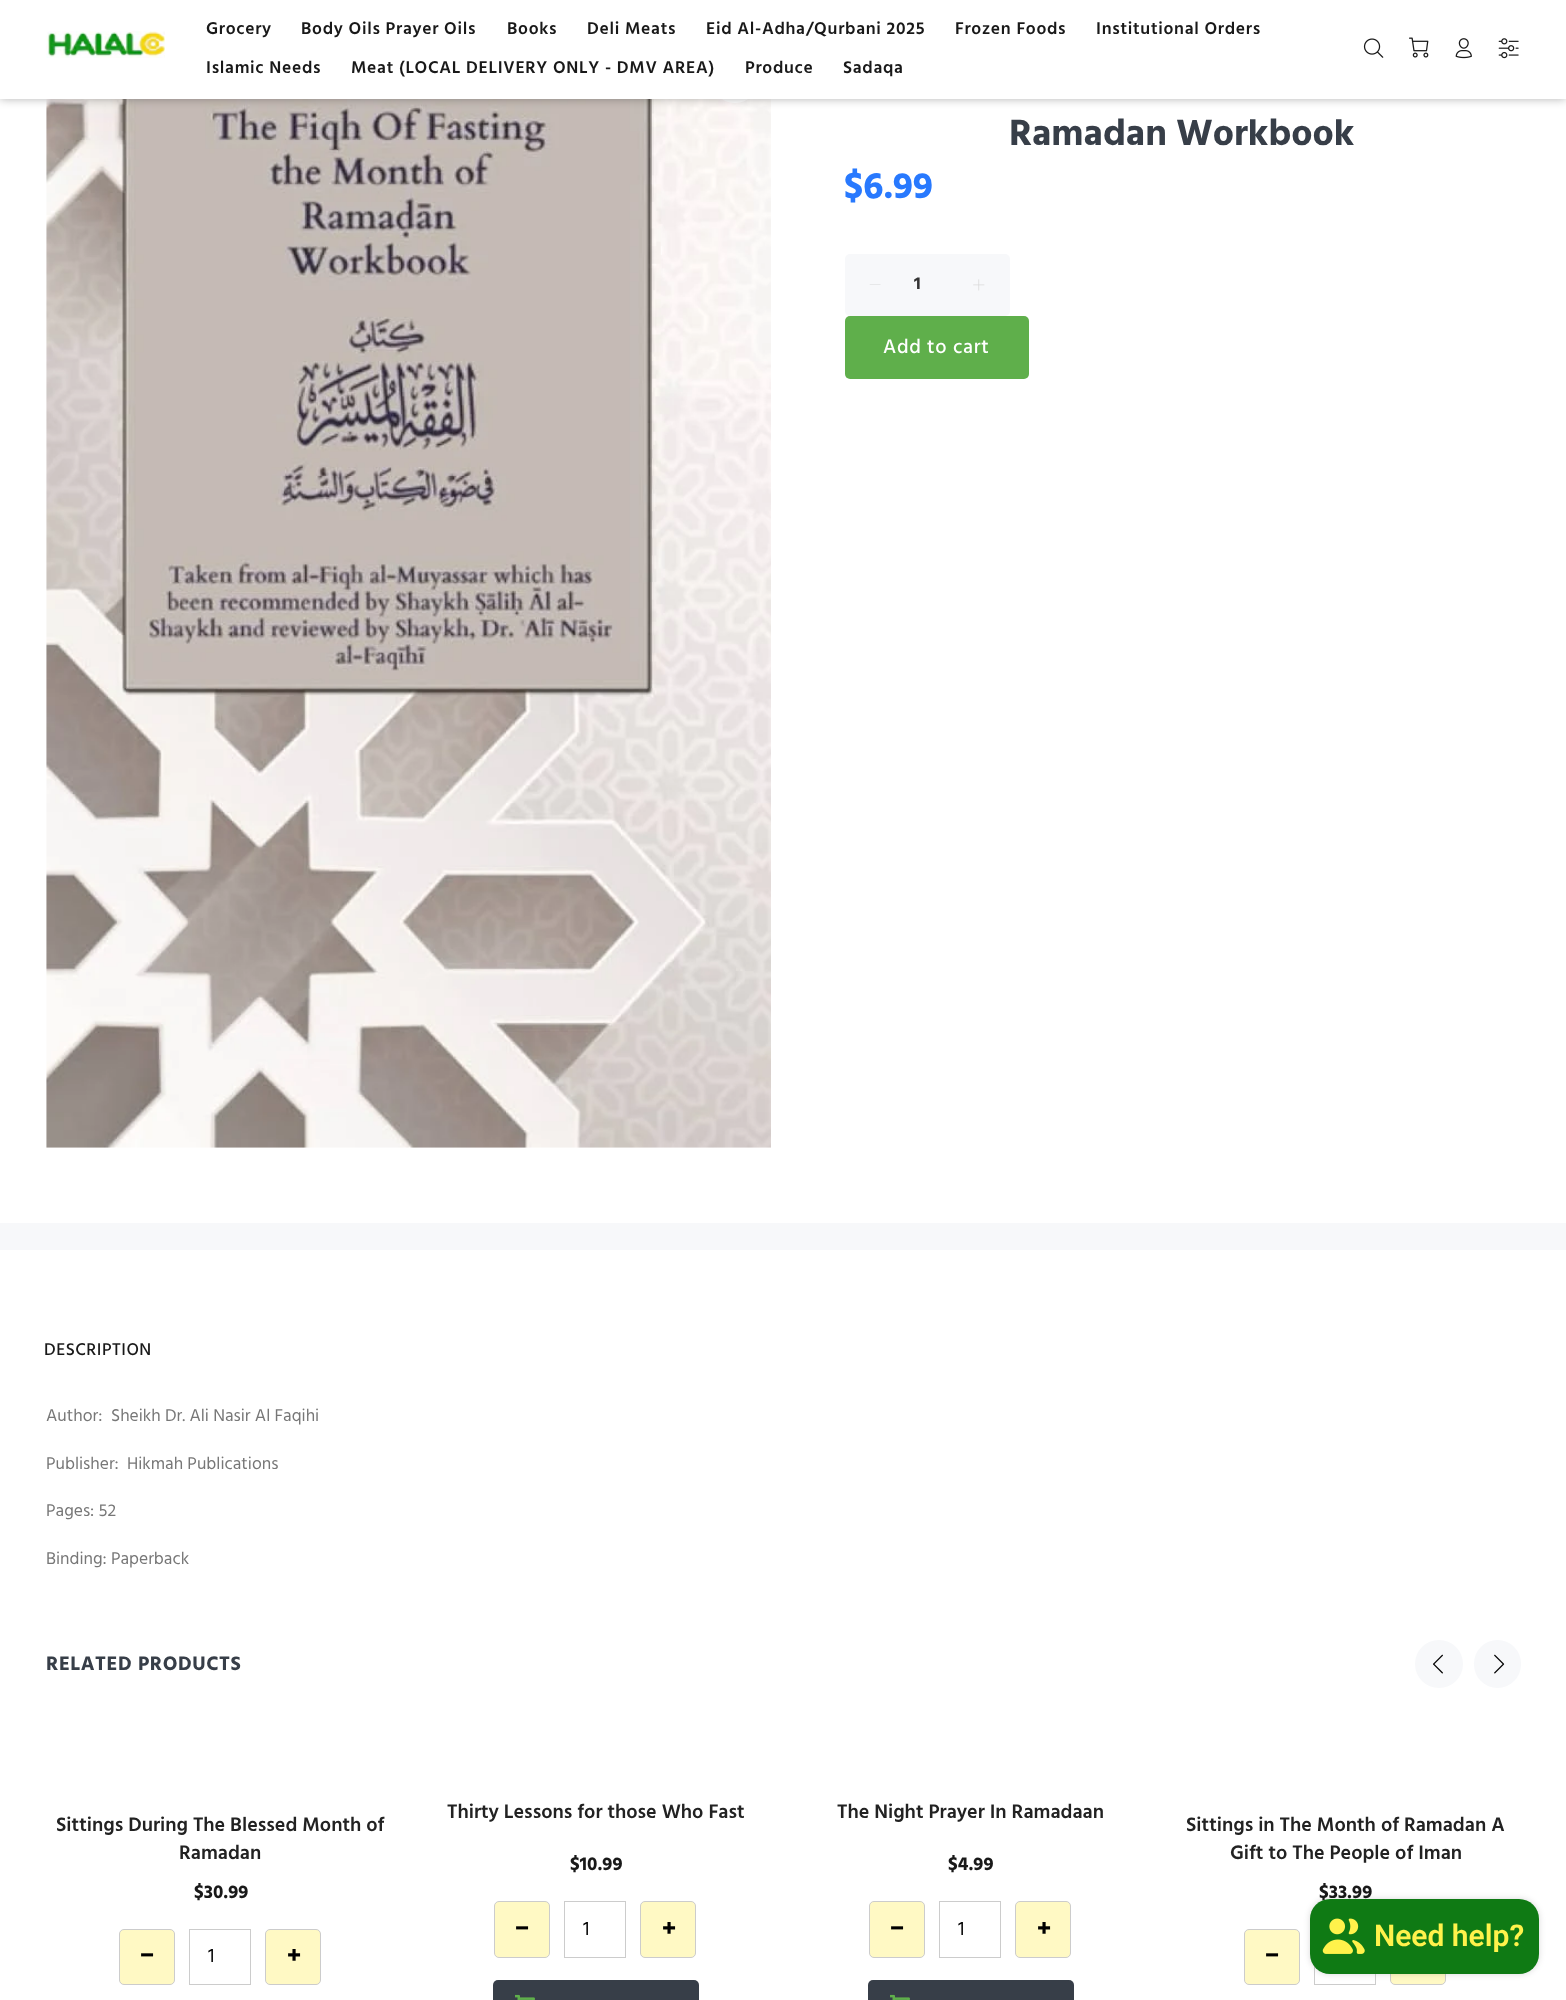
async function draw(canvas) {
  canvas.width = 1566;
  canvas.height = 2000;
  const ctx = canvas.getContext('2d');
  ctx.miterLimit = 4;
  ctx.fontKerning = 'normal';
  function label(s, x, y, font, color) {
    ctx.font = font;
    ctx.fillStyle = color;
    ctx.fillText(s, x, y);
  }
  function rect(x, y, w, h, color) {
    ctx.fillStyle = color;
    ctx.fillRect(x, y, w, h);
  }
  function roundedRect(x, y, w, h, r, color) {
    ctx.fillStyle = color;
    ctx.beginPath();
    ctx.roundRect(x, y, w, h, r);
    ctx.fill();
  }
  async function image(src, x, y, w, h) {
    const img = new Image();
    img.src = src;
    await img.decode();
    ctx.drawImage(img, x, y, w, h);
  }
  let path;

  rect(0, 0, 1566, 2000, '#fff');
  await image('assets/img6.png', 46, 99, 725, 1049);
  ctx.beginPath();
  ctx.arc(735, 79, 24, 0, 2 * Math.PI);
  ctx.fill();
  ctx.fillStyle = '#0000004d';
  ctx.filter = 'blur(5px)';
  ctx.beginPath();
  ctx.rect(0, 0, 1566, 99);
  ctx.fill();
  ctx.filter = 'none';
  rect(0, 0, 1566, 99, '#fff');
  await image('assets/img1.png', 46, 31, 119, 27);
  ctx.letterSpacing = '0.7px';
  label('Grocery', 206, 34, '600 17.5px Hind', '#191919');
  label('Body Oils Prayer Oils', 301, 34, '600 17.5px Hind', '#191919');
  label('Books', 507, 34, '600 17.5px Hind', '#191919');
  label('Deli Meats', 587, 34, '600 17.5px Hind', '#191919');
  label('Eid Al-Adha/Qurbani 2025', 706, 34, '600 17.5px Hind', '#191919');
  label('Frozen Foods', 955, 34, '600 17.5px Hind', '#191919');
  label('Institutional Orders', 1096, 34, '600 17.5px Hind', '#191919');
  label('Islamic Needs', 206, 73, '600 17.5px Hind', '#191919');
  label('Meat (LOCAL DELIVERY ONLY - DMV AREA)', 351, 73, '600 17.5px Hind', '#191919');
  label('Produce', 745, 73, '600 17.5px Hind', '#191919');
  label('Sadaqa', 843, 73, '600 17.5px Hind', '#191919');
  await image('assets/img2.png', 1363, 38, 21, 20);
  await image('assets/img3.png', 1409, 37, 20, 21);
  await image('assets/img4.png', 1455, 38, 17, 21);
  await image('assets/img5.png', 1498, 38, 21, 21);
  ctx.letterSpacing = '0px';
  label('Ramadan Workbook', 1009, 145, 'bold 37.5px Hind', '#373e48');
  label('$6.99', 844, 198, 'bold 37.5px Hind', '#2879fe');
  roundedRect(845, 254, 165, 62, 5, '#f7f8fa');
  ctx.fillStyle = '#d8d8d8';
  path = new Path2D('M880.5 284.5V285H869.5L870 284.5Z');
  ctx.fill(path);
  label('1', 914, 289, 'bold 17.5px Hind', '#333');
  await image('assets/img7.png', 973, 279, 12, 12);
  roundedRect(845, 316, 184, 63, 5, '#5faf4b');
  ctx.letterSpacing = '0.7px';
  label('Add to cart', 883, 353, '500 20px Hind', '#fff');
  rect(0, 1223, 1566, 27, '#f7f8fa');
  ctx.letterSpacing = '0.5px';
  label('DESCRIPTION', 44, 1355, '500 17.5px Hind', '#191919');
  ctx.letterSpacing = '0px';
  label('Author:', 46, 1421, '17.5px Hind', '#777');
  label('Sheikh Dr. Ali Nasir Al Faqihi', 111, 1421, '17.5px Hind', '#777');
  label('Publisher:', 46, 1469, '17.5px Hind', '#777');
  label('Hikmah Publications', 127, 1469, '17.5px Hind', '#777');
  label('Pages: 52', 46, 1516, '17.5px Hind', '#777');
  label('Binding: Paperback', 46, 1564, '17.5px Hind', '#777');
  ctx.letterSpacing = '0.6px';
  label('RELATED PRODUCTS', 46, 1670, 'bold 20px Hind', '#373e48');
  ctx.fillStyle = '#f7f8fa';
  ctx.beginPath();
  ctx.arc(1439, 1664, 24, 0, 2 * Math.PI);
  ctx.fill();
  await image('assets/img8.png', 1433, 1654, 10, 20);
  roundedRect(1474, 1640, 47, 48, 23.5, '#f7f8fa');
  await image('assets/img9.png', 1494, 1654, 11, 20);
  ctx.letterSpacing = '0px';
  label('Sittings During The Blessed Month of', 56, 1831, '600 20px Hind', '#222');
  label('Ramadan', 179, 1859, '600 20px Hind', '#222');
  label('$30.99', 194, 1898, 'bold 19px Hind', '#191919');
  ctx.fillStyle = '#fff9c4';
  ctx.beginPath();
  ctx.roundRect(119.5, 1929.5, 55, 55, 4.5);
  ctx.fill();
  ctx.strokeStyle = '#ccc';
  ctx.stroke();
  label('−', 140, 1963, 'bold 24px Hind', '#000');
  ctx.strokeRect(189.5, 1929.5, 61, 55);
  label('1', 208, 1962, '20px Hind', '#000');
  ctx.fillStyle = '#fff9c4';
  ctx.beginPath();
  ctx.roundRect(265.5, 1929.5, 55, 55, 4.5);
  ctx.fill();
  ctx.stroke();
  label('+', 287, 1963, 'bold 24px Hind', '#000');
  label('Thirty Lessons for those Who Fast', 447, 1818, '600 20px Hind', '#222');
  label('$10.99', 570, 1870, 'bold 19px Hind', '#191919');
  ctx.fillStyle = '#fff9c4';
  ctx.beginPath();
  ctx.roundRect(494.5, 1901.5, 55, 56, 4.5);
  ctx.fill();
  ctx.stroke();
  label('−', 515, 1936, 'bold 24px Hind', '#000');
  ctx.strokeRect(564.5, 1901.5, 61, 56);
  label('1', 583, 1935, '20px Hind', '#000');
  ctx.fillStyle = '#fff9c4';
  ctx.beginPath();
  ctx.roundRect(640.5, 1901.5, 55, 56, 4.5);
  ctx.fill();
  ctx.stroke();
  label('+', 662, 1936, 'bold 24px Hind', '#000');
  roundedRect(493, 1980, 206, 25, 5, '#373e48');
  await image('assets/img10.png', 515, 1994, 20, 6);
  label('The Night Prayer In Ramadaan', 837, 1818, '600 20px Hind', '#222');
  label('$4.99', 948, 1870, 'bold 19px Hind', '#191919');
  ctx.fillStyle = '#fff9c4';
  ctx.beginPath();
  ctx.roundRect(869.5, 1901.5, 55, 56, 4.5);
  ctx.fill();
  ctx.stroke();
  label('−', 890, 1936, 'bold 24px Hind', '#000');
  ctx.strokeRect(939.5, 1901.5, 61, 56);
  label('1', 958, 1935, '20px Hind', '#000');
  ctx.fillStyle = '#fff9c4';
  ctx.beginPath();
  ctx.roundRect(1015.5, 1901.5, 55, 56, 4.5);
  ctx.fill();
  ctx.stroke();
  label('+', 1037, 1936, 'bold 24px Hind', '#000');
  roundedRect(868, 1980, 206, 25, 5, '#373e48');
  await image('assets/img10.png', 890, 1994, 20, 6);
  label('Sittings in The Month of Ramadan A', 1186, 1831, '600 20px Hind', '#222');
  label('Gift to The People of Iman', 1230, 1859, '600 20px Hind', '#222');
  label('$33.99', 1319, 1898, 'bold 19px Hind', '#191919');
  ctx.fillStyle = '#fff9c4';
  ctx.beginPath();
  ctx.roundRect(1244.5, 1929.5, 55, 55, 4.5);
  ctx.fill();
  ctx.stroke();
  label('−', 1265, 1963, 'bold 24px Hind', '#000');
  ctx.strokeRect(1314.5, 1929.5, 61, 55);
  ctx.fillStyle = '#fff9c4';
  ctx.beginPath();
  ctx.roundRect(1390.5, 1929.5, 55, 55, 4.5);
  ctx.fill();
  ctx.stroke();
  ctx.fillStyle = '#00000026';
  ctx.filter = 'blur(3px)';
  ctx.beginPath();
  ctx.roundRect(1310, 1899, 229, 75, 20);
  ctx.fill();
  ctx.filter = 'none';
  roundedRect(1310, 1899, 229, 75, 20, '#0f7a14');
  await image('assets/img11.png', 1322, 1918, 43, 36);
  label('Need help?', 1374, 1946, '600 30px Roboto', '#fff24b');
}

draw(document.querySelector('canvas'));
